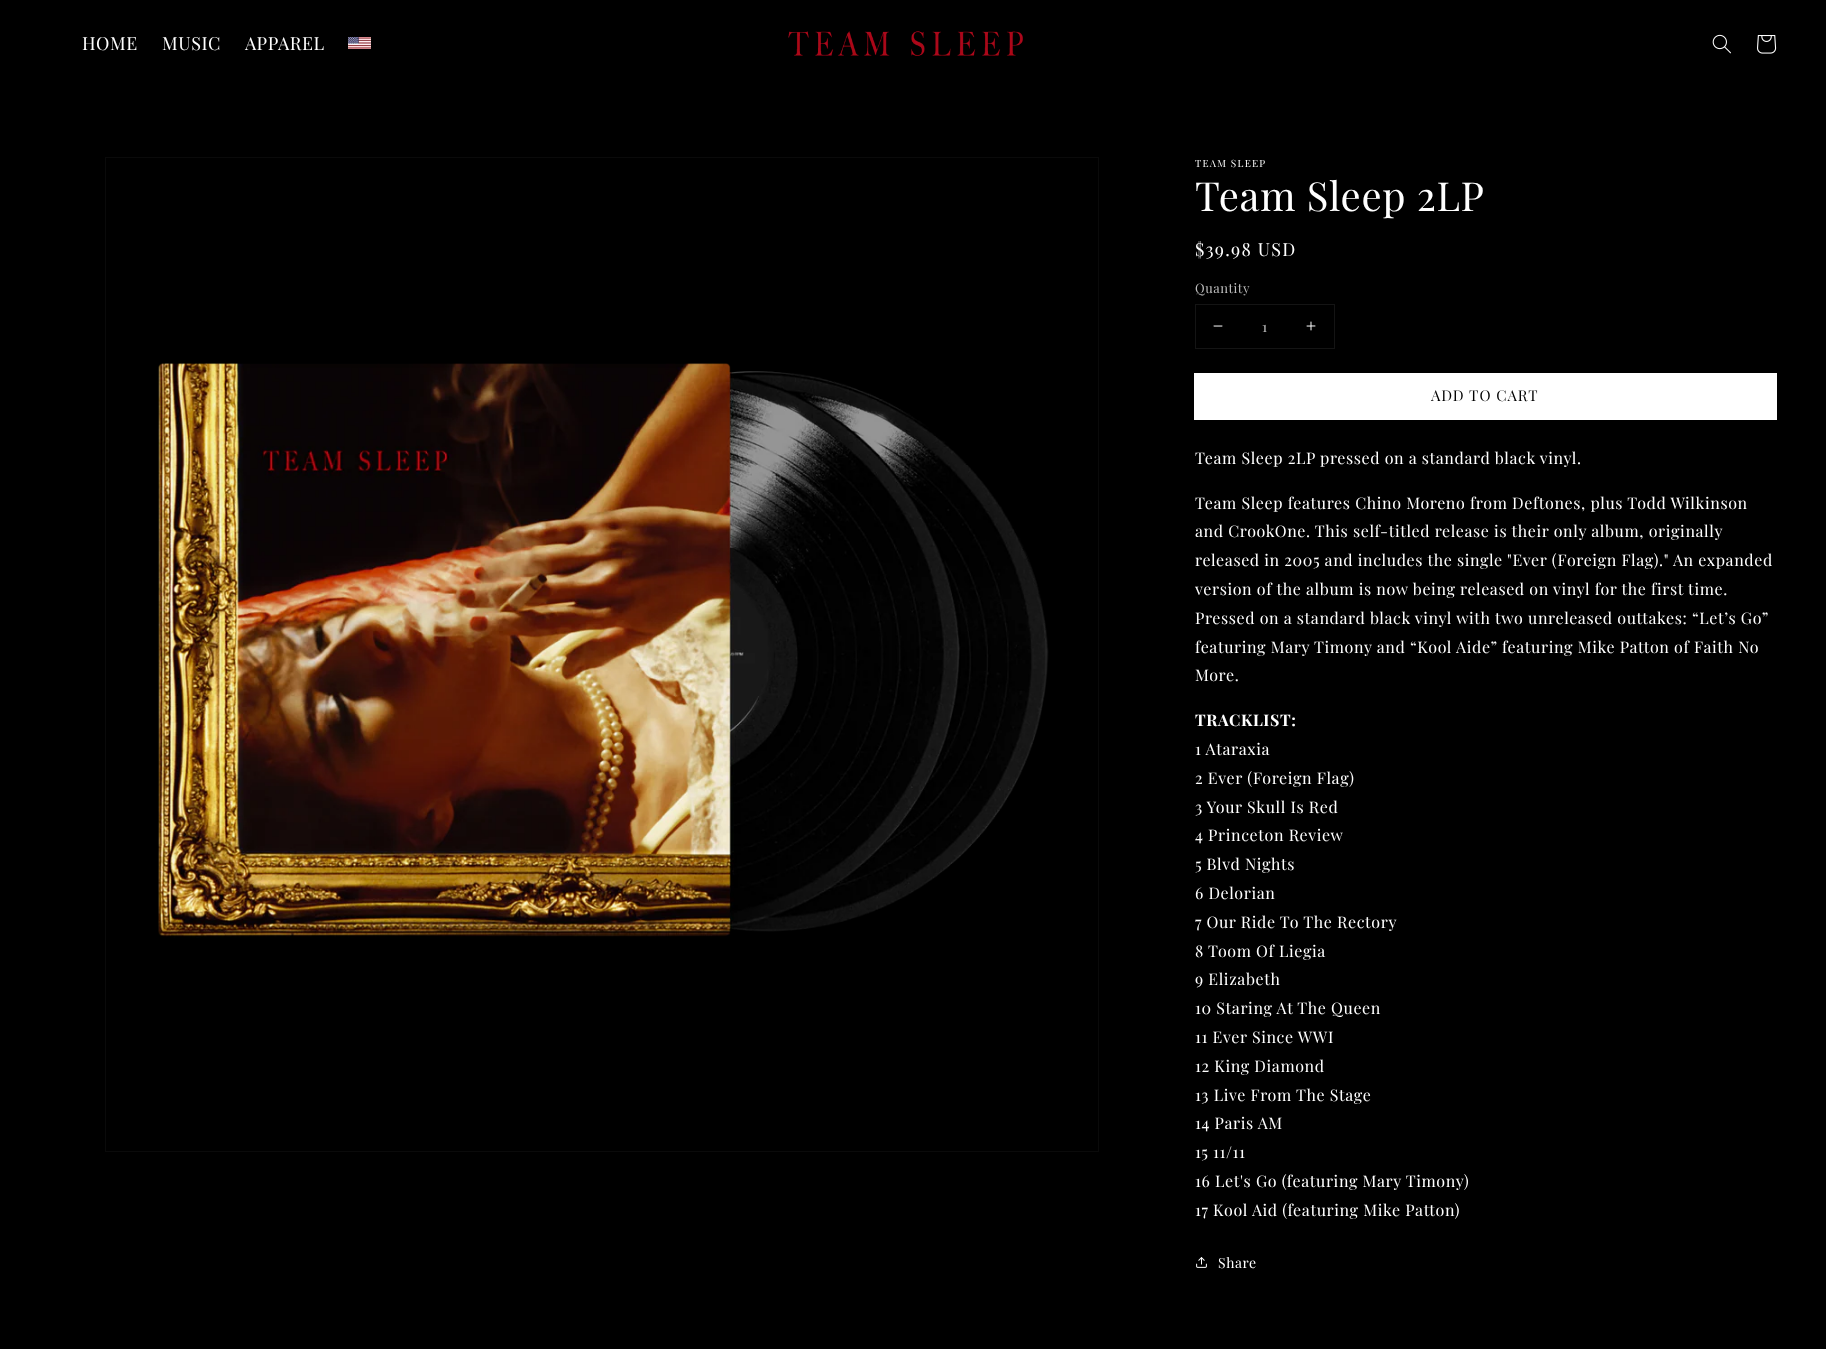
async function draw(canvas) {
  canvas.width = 1826;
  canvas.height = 1349;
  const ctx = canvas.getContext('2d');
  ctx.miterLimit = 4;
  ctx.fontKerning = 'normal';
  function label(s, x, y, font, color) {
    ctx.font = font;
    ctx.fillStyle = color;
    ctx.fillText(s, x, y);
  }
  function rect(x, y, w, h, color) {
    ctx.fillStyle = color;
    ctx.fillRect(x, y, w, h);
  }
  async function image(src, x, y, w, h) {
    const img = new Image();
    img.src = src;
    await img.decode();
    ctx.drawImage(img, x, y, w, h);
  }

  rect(0, 0, 1826, 1349, '#000');
  ctx.letterSpacing = '0.6px';
  label('HOME', 82, 50, '18px Playfair Display', '#fff');
  label('MUSIC', 162, 50, '18px Playfair Display', '#fff');
  label('APPAREL', 245, 50, '18px Playfair Display', '#fff');
  await image('assets/img1.png', 348, 37, 23, 12);
  await image('assets/img2.png', 788, 31, 235, 25);
  await image('assets/img3.png', 1712, 34, 19, 20);
  await image('assets/img4.png', 1757, 35, 20, 19);
  ctx.strokeStyle = '#0a0a0a';
  ctx.strokeRect(105.5, 157.5, 993, 994);
  await image('assets/img5.png', 158, 363, 891, 575);
  ctx.letterSpacing = '1.25px';
  label('TEAM SLEEP', 1195, 167, '10px Playfair Display', '#fff');
  ctx.letterSpacing = '0.6px';
  label('Team Sleep 2LP', 1195, 211, '40px Playfair Display', '#fff');
  ctx.letterSpacing = '1.25px';
  label('$39.98 USD', 1195, 256, '18px Playfair Display', '#fff');
  ctx.letterSpacing = '0.5px';
  label('Quantity', 1195, 293, '13px Playfair Display', '#bfbfbf');
  ctx.strokeStyle = '#141414';
  ctx.strokeRect(1195.5, 304.5, 139, 44);
  await image('assets/img6.png', 1213, 325, 10, 2);
  ctx.letterSpacing = '0px';
  label('1', 1262, 332, '500 14px Playfair Display', '#a3a3a3');
  await image('assets/img7.png', 1306, 321, 10, 10);
  ctx.strokeStyle = '#fff';
  ctx.strokeRect(1194.5, 373.5, 582, 46);
  rect(1195, 374, 581, 45, '#fff');
  ctx.letterSpacing = '1px';
  label('ADD TO CART', 1431, 401, '15px Playfair Display', '#000');
  ctx.letterSpacing = '0.6px';
  label('Team Sleep 2LP pressed on a standard black vinyl.', 1195, 464, '16px Playfair Display', '#fff');
  label('Team Sleep features Chino Moreno from Deftones, plus Todd Wilkinson', 1195, 509, '16px Playfair Display', '#fff');
  label('and CrookOne. This self-titled release is their only album, originally', 1195, 537, '16px Playfair Display', '#fff');
  label('released in 2005 and includes the single "Ever (Foreign Flag)." An expanded', 1195, 566, '16px Playfair Display', '#fff');
  label('version of the album is now being released on vinyl for the first time.', 1195, 595, '16px Playfair Display', '#fff');
  label('Pressed on a standard black vinyl with two unreleased outtakes: “Let’s Go”', 1195, 624, '16px Playfair Display', '#fff');
  label('featuring Mary Timony and “Kool Aide” featuring Mike Patton of Faith No', 1195, 653, '16px Playfair Display', '#fff');
  label('More.', 1195, 681, '16px Playfair Display', '#fff');
  label('TRACKLIST:', 1195, 726, 'bold 16px Playfair Display', '#fff');
  label('1 Ataraxia', 1195, 755, '16px Playfair Display', '#fff');
  label('2 Ever (Foreign Flag)', 1195, 784, '16px Playfair Display', '#fff');
  label('3 Your Skull Is Red', 1195, 813, '16px Playfair Display', '#fff');
  label('4 Princeton Review', 1195, 841, '16px Playfair Display', '#fff');
  label('5 Blvd Nights', 1195, 870, '16px Playfair Display', '#fff');
  label('6 Delorian', 1195, 899, '16px Playfair Display', '#fff');
  label('7 Our Ride To The Rectory', 1195, 928, '16px Playfair Display', '#fff');
  label('8 Toom Of Liegia', 1195, 957, '16px Playfair Display', '#fff');
  label('9 Elizabeth', 1195, 985, '16px Playfair Display', '#fff');
  label('10 Staring At The Queen', 1195, 1014, '16px Playfair Display', '#fff');
  label('11 Ever Since WWI', 1195, 1043, '16px Playfair Display', '#fff');
  label('12 King Diamond', 1195, 1072, '16px Playfair Display', '#fff');
  label('13 Live From The Stage', 1195, 1101, '16px Playfair Display', '#fff');
  label('14 Paris AM', 1195, 1129, '16px Playfair Display', '#fff');
  label('15 11/11', 1195, 1158, '16px Playfair Display', '#fff');
  label('16 Let\'s Go (featuring Mary Timony)', 1195, 1187, '16px Playfair Display', '#fff');
  label('17 Kool Aid (featuring Mike Patton)', 1195, 1216, '16px Playfair Display', '#fff');
  await image('assets/img8.png', 1196, 1257, 11, 11);
  label('Share', 1218, 1268, '14px Playfair Display', '#fff');
}

draw(document.querySelector('canvas'));
